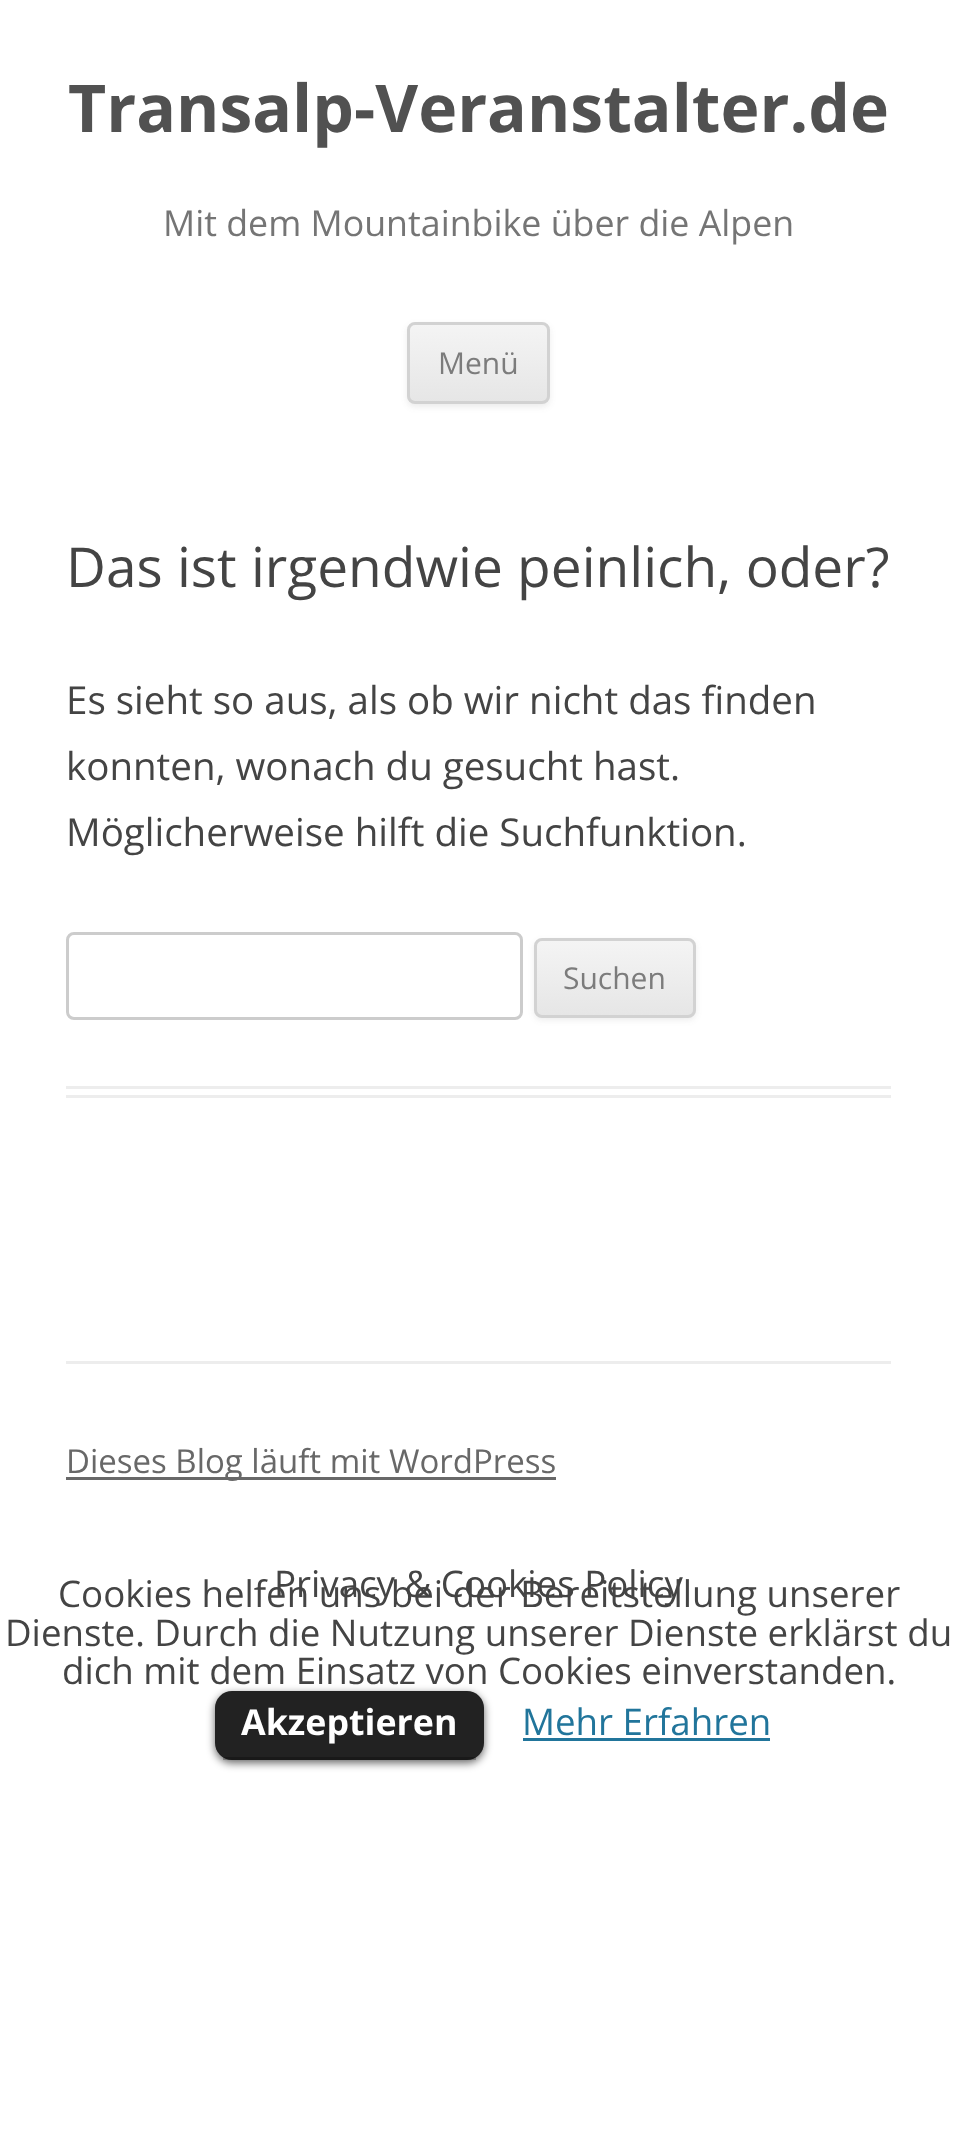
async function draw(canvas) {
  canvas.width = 956;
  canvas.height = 2140;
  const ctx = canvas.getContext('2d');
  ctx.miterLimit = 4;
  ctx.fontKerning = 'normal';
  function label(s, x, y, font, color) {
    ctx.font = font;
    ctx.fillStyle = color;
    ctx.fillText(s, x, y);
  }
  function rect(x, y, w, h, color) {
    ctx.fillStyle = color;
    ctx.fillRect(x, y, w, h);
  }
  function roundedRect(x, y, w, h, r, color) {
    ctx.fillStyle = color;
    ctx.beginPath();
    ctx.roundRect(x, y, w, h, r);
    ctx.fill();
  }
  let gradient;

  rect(0, 0, 956, 2140, '#fff');
  label('Transalp-Veranstalter.de', 68, 132, 'bold 66px Open Sans', '#515151');
  label('Mit dem Mountainbike über die Alpen', 163, 236, '35.75px Open Sans', '#757575');
  ctx.fillStyle = '#4040401a';
  ctx.filter = 'blur(3px)';
  ctx.beginPath();
  ctx.roundRect(407, 325, 143, 82, 8);
  ctx.fill();
  ctx.filter = 'none';
  ctx.save();
  ctx.beginPath();
  ctx.roundRect(407, 322, 143, 82, 8);
  ctx.clip();
  gradient = ctx.createLinearGradient(479, 325, 479, 402);
  gradient.addColorStop(0, '#f4f4f4');
  gradient.addColorStop(1, '#e6e6e6');
  ctx.fillStyle = gradient;
  ctx.fillRect(407, 325, 143, 77);
  ctx.restore();
  ctx.beginPath();
  ctx.roundRect(408.5, 323.5, 140, 79, 6.5);
  ctx.strokeStyle = '#d2d2d2';
  ctx.lineWidth = 3;
  ctx.stroke();
  label('Menü', 438, 374, '30px Open Sans', '#7c7c7c');
  rect(66, 1086, 825, 3, '#ededed');
  rect(66, 1095, 825, 3, '#ededed');
  label('Das ist irgendwie peinlich, oder?', 66, 587, '55px Open Sans', '#444');
  label('Es sieht so aus, als ob wir nicht das finden', 66, 714, '38.5px Open Sans', '#444');
  label('konnten, wonach du gesucht hast.', 66, 780, '38.5px Open Sans', '#444');
  label('Möglicherweise hilft die Suchfunktion.', 66, 846, '38.5px Open Sans', '#444');
  ctx.beginPath();
  ctx.roundRect(67.5, 933.5, 454, 85, 6.5);
  ctx.strokeStyle = '#ccc';
  ctx.stroke();
  ctx.fillStyle = '#4040401a';
  ctx.filter = 'blur(3px)';
  ctx.beginPath();
  ctx.roundRect(534, 941, 162, 79, 8);
  ctx.fill();
  ctx.filter = 'none';
  ctx.save();
  ctx.beginPath();
  ctx.roundRect(534, 938, 162, 80, 8);
  ctx.clip();
  gradient = ctx.createLinearGradient(615, 941, 615, 1015);
  gradient.addColorStop(0, '#f4f4f4');
  gradient.addColorStop(1, '#e6e6e6');
  ctx.fillStyle = gradient;
  ctx.fillRect(534, 941, 162, 74);
  ctx.restore();
  ctx.beginPath();
  ctx.roundRect(535.5, 939.5, 159, 77, 6.5);
  ctx.strokeStyle = '#d2d2d2';
  ctx.stroke();
  label('Suchen', 563, 989, '30px Open Sans', '#7c7c7c');
  rect(66, 1361, 825, 3, '#ededed');
  rect(66, 1477, 490, 3, '#686868');
  label('Dieses Blog läuft mit WordPress', 66, 1473, '33px Open Sans', '#686868');
  label('Privacy & Cookies Policy', 274, 1597, '36.7px Open Sans', '#444');
  label('Cookies helfen uns bei der Bereitstellung unserer', 58, 1607, '36.7px Open Sans', '#444');
  label('Dienste. Durch die Nutzung unserer Dienste erklärst du', 5, 1646, '36.7px Open Sans', '#444');
  label('dich mit dem Einsatz von Cookies einverstanden.', 62, 1684, '36.7px Open Sans', '#444');
  ctx.fillStyle = '#00000099';
  ctx.filter = 'blur(4px)';
  ctx.beginPath();
  ctx.roundRect(215, 1694, 269, 69, 17);
  ctx.fill();
  ctx.filter = 'none';
  roundedRect(215, 1691, 269, 69, 17, '#222');
  rect(223, 1757, 253, 3, '#00000040');
  label('Akzeptieren', 241, 1735, 'bold 35.75px Open Sans', '#fff');
  label('Mehr Erfahren', 522, 1735, '36.7px Open Sans', '#21759b');
  rect(523, 1738, 247, 3, '#21759b');
}

draw(document.querySelector('canvas'));
